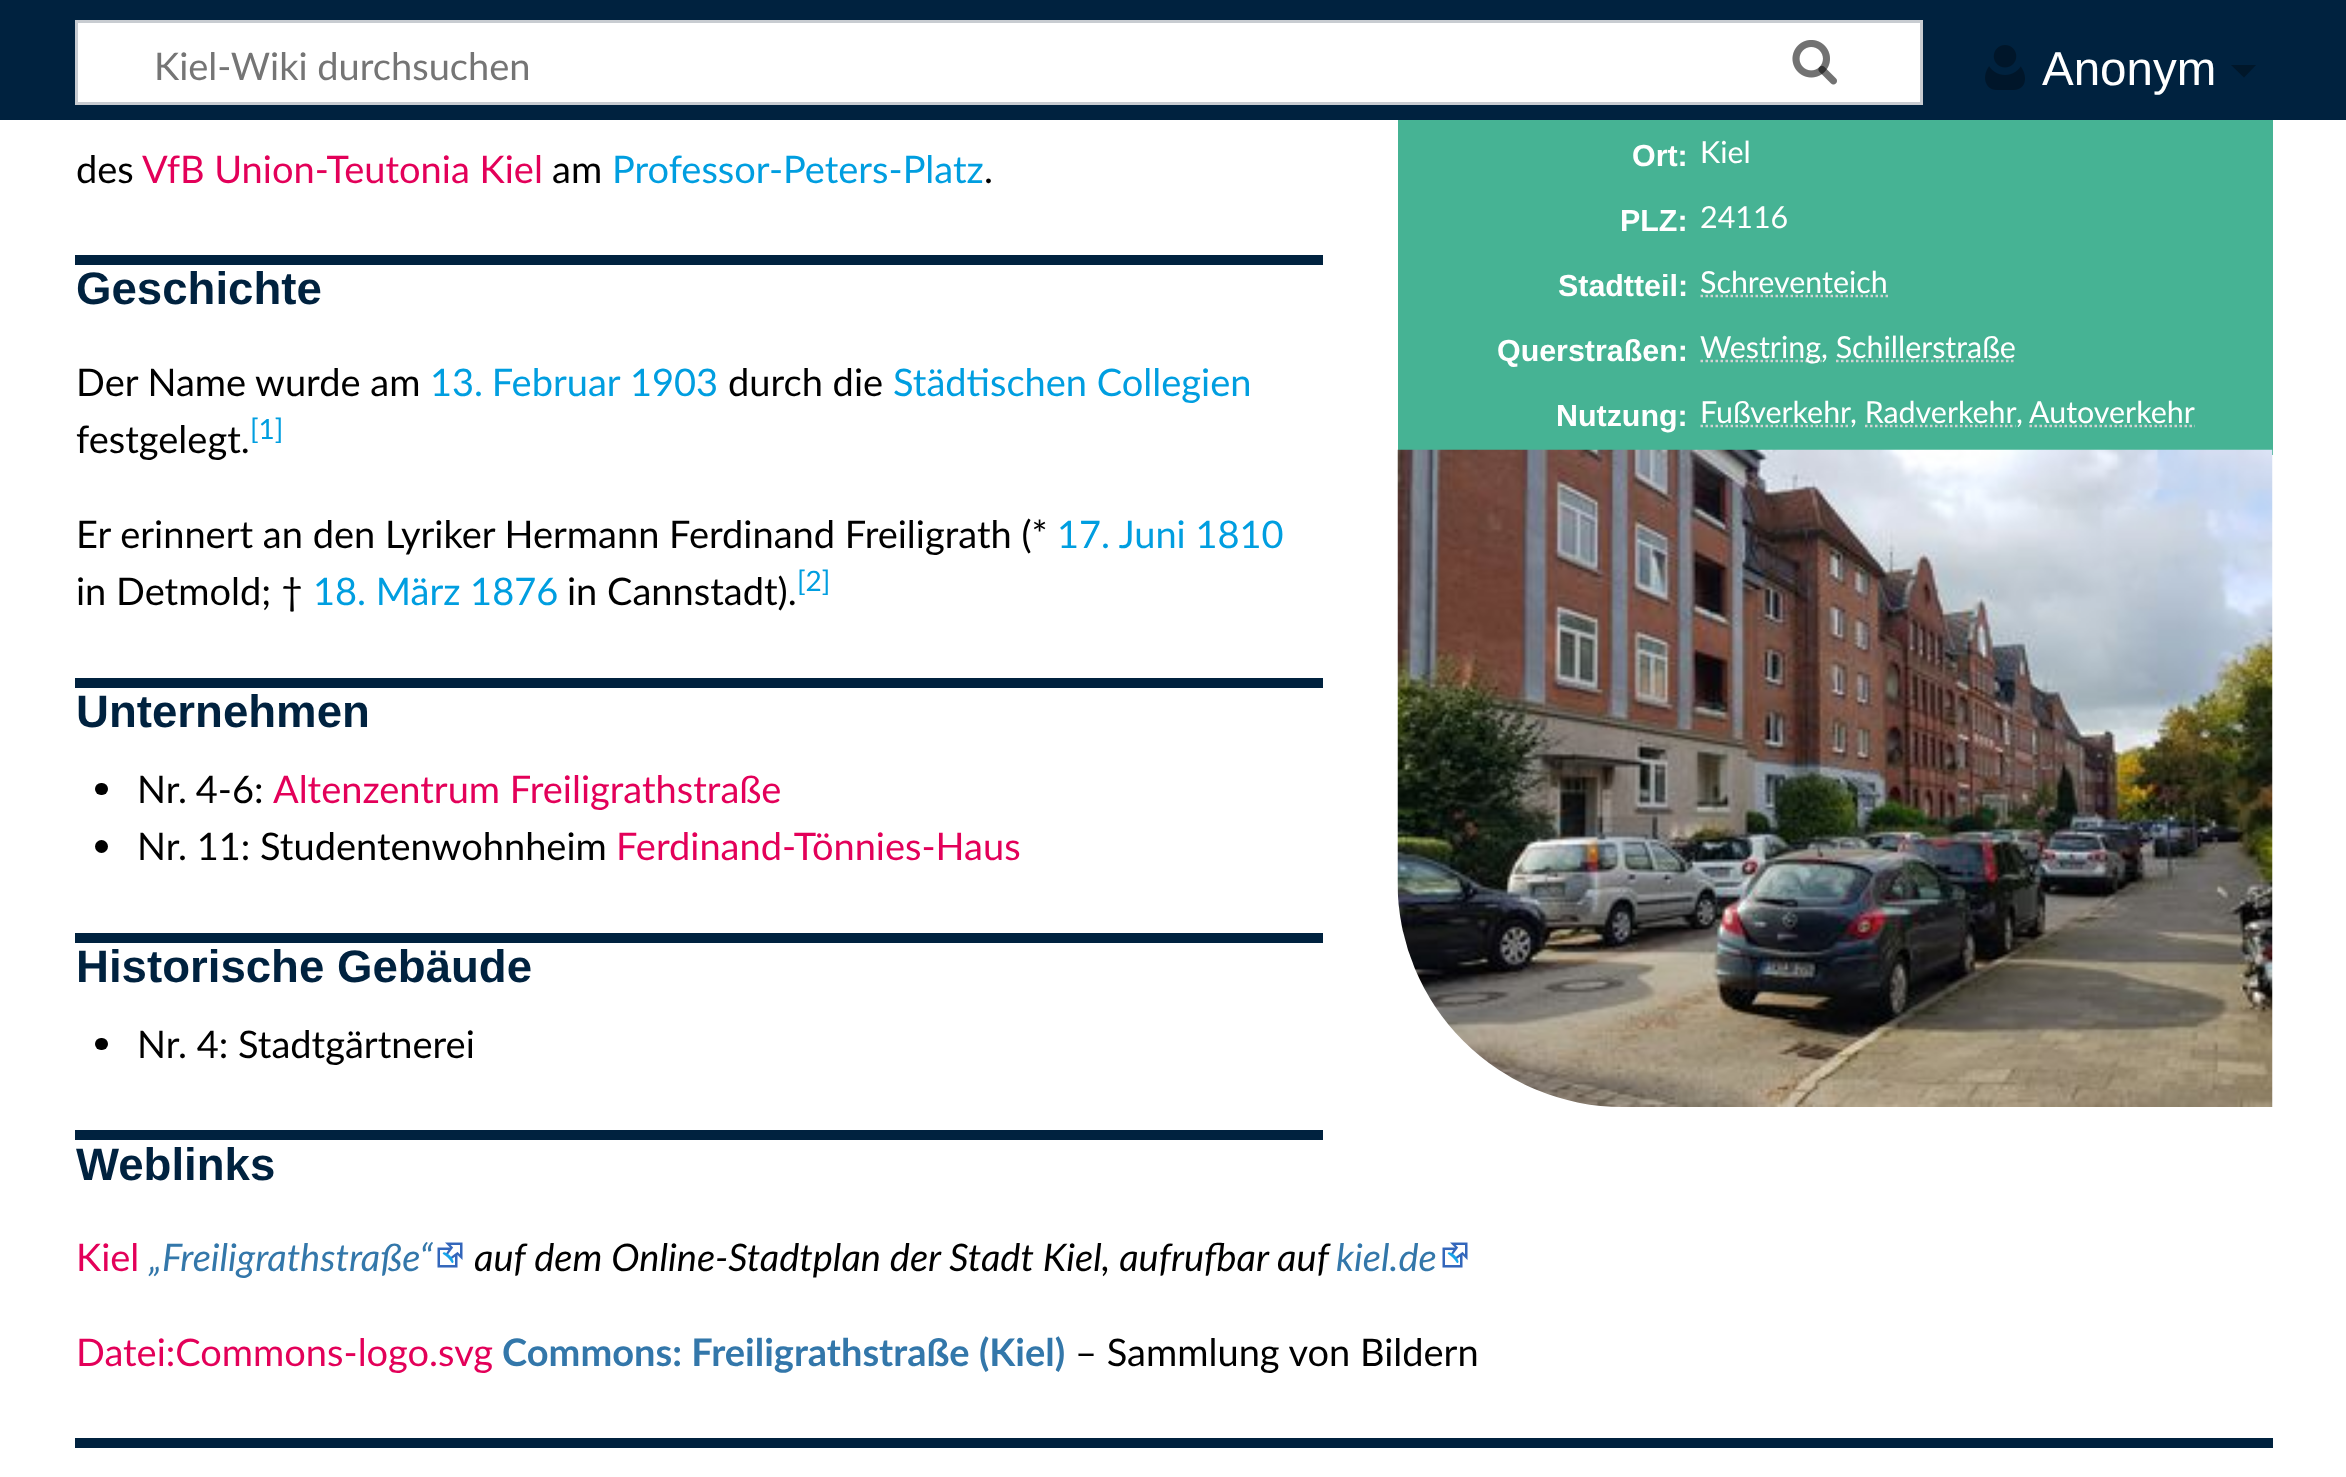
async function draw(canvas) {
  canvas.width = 2346;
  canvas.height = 1477;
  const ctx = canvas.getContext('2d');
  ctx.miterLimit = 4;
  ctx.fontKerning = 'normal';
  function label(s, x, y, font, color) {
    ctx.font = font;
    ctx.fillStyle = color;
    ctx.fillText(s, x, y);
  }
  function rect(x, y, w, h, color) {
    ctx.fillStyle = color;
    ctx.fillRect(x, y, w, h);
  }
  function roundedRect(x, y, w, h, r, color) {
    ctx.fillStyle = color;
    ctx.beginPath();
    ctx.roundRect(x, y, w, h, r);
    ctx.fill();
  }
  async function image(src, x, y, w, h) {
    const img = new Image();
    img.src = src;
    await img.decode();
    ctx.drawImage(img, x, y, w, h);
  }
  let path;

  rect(0, 0, 2346, 1477, '#fff');
  rect(0, 0, 2346, 120, '#00223f');
  ctx.fillStyle = '#fff';
  ctx.beginPath();
  ctx.rect(76.5, 21.5, 1845, 82);
  ctx.fill();
  ctx.strokeStyle = '#c8ccd1';
  ctx.lineWidth = 3;
  ctx.stroke();
  await image('assets/img1.png', 1792, 40, 45, 45);
  label('Kiel-Wiki durchsuchen', 154, 80, '38px Lato', '#757575');
  await image('assets/img2.png', 1792, 40, 45, 45);
  await image('assets/img3.png', 1985, 45, 40, 45);
  label('Anonym', 2042, 85, '47.5px Liberation Sans', '#fff');
  ctx.fillStyle = '#00172a';
  path = new Path2D('M2256 65L2244 77.5L2231 65Z');
  ctx.fill(path);
  label('des', 76, 183, '38px Lato', '#000');
  label('VfB Union-Teutonia Kiel', 142, 183, '38px Lato', '#e30059');
  label('am', 552, 183, '38px Lato', '#000');
  label('Professor-Peters-Platz', 612, 183, '38px Lato', '#009ee0');
  label('.', 984, 183, '38px Lato', '#000');
  rect(1398, 120, 875, 335, '#46b394');
  label('Ort:', 1632, 166, 'bold 30.4px Liberation Sans', '#fff');
  label('Kiel', 1700, 163, '30.4px Lato', '#fff');
  label('PLZ:', 1620, 231, 'bold 30.4px Liberation Sans', '#fff');
  label('24116', 1700, 228, '30.4px Lato', '#fff');
  label('Stadtteil:', 1558, 296, 'bold 30.4px Liberation Sans', '#fff');
  label('Schreventeich', 1700, 293, '30.4px Lato', '#fff');
  path = new Path2D('M1700.5 296H1888');
  ctx.strokeStyle = '#d3d3d3';
  ctx.lineWidth = 2.5;
  ctx.setLineDash([2.5, 2.5]);
  ctx.stroke(path);
  label('Querstraßen:', 1497, 361, 'bold 30.4px Liberation Sans', '#fff');
  path = new Path2D('M1700.5 361H1821.5');
  ctx.stroke(path);
  label('Westring, Schillerstraße', 1700, 358, '30.4px Lato', '#fff');
  path = new Path2D('M1836 361H2016');
  ctx.stroke(path);
  label('Nutzung:', 1556, 426, 'bold 30.4px Liberation Sans', '#fff');
  label('Fußverkehr', 1700, 423, '30.4px Lato', '#fff');
  path = new Path2D('M1700.5 426H1850');
  ctx.stroke(path);
  label(', Radverkehr', 1850, 423, '30.4px Lato', '#fff');
  label(',', 2016, 423, '30.4px Lato', '#fff');
  label('Autoverkehr', 2029, 423, '30.4px Lato', '#fff');
  path = new Path2D('M2029.5 426H2195');
  ctx.stroke(path);
  path = new Path2D('M1865 426H2015.5');
  ctx.stroke(path);
  await image('assets/img4.png', 1397, 449, 876, 658);
  rect(75, 255, 1248, 10, '#00223f');
  label('Geschichte', 76, 304, 'bold 45.6px Liberation Sans', '#00223f');
  label('Der Name wurde am', 76, 396, '38px Lato', '#000');
  ctx.wordSpacing = '-1px';
  label('13. Februar', 430, 396, '38px Lato', '#009ee0');
  ctx.wordSpacing = '0px';
  label('1903', 630, 396, '38px Lato', '#009ee0');
  label('durch die', 728, 396, '38px Lato', '#000');
  label('Städtischen Collegien', 893, 396, '38px Lato', '#009ee0');
  label('festgelegt.', 76, 453, '38px Lato', '#000');
  label('[1]', 250, 439, '28px Lato', '#009ee0');
  label('Er erinnert an den Lyriker Hermann Ferdinand Freiligrath (*', 76, 548, '38px Lato', '#000');
  label('17. Juni 1810', 1057, 548, '38px Lato', '#009ee0');
  label('in Detmold; †', 76, 605, '38px Lato', '#000');
  label('18. März 1876', 313, 605, '38px Lato', '#009ee0');
  label('in Cannstadt).', 567, 605, '38px Lato', '#000');
  label('[2]', 797, 591, '28px Lato', '#009ee0');
  rect(75, 678, 1248, 10, '#00223f');
  label('Unternehmen', 76, 727, 'bold 45.6px Liberation Sans', '#00223f');
  roundedRect(95, 783, 13, 12, 6, '#000');
  ctx.wordSpacing = '-1px';
  label('Nr. 4-6:', 137, 803, '38px Lato', '#000');
  ctx.wordSpacing = '0px';
  label('Altenzentrum Freiligrathstraße', 273, 803, '38px Lato', '#e30059');
  ctx.fillStyle = '#000';
  ctx.beginPath();
  ctx.arc(101.5, 846.5, 6.5, 0, 2 * Math.PI);
  ctx.fill();
  label('Nr. 11: Studentenwohnheim', 137, 860, '38px Lato', '#000');
  label('Ferdinand-Tönnies-Haus', 616, 860, '38px Lato', '#e30059');
  rect(75, 933, 1248, 10, '#00223f');
  label('Historische Gebäude', 76, 982, 'bold 45.6px Liberation Sans', '#00223f');
  roundedRect(95, 1038, 13, 12, 6, '#000');
  label('Nr. 4: Stadtgärtnerei', 137, 1058, '38px Lato', '#000');
  rect(75, 1130, 1248, 10, '#00223f');
  label('Weblinks', 76, 1180, 'bold 45.6px Liberation Sans', '#00223f');
  label('Kiel', 76, 1271, '38px Lato', '#e30059');
  label('„Freiligrathstraße“', 149, 1271, 'italic 38px Lato', '#37a');
  await image('assets/img5.png', 437, 1242, 26, 26);
  label('auf dem Online-Stadtplan der Stadt Kiel, aufrufbar auf', 474, 1271, 'italic 38px Lato', '#000');
  label('kiel.de', 1336, 1271, 'italic 38px Lato', '#37a');
  await image('assets/img5.png', 1442, 1242, 26, 26);
  label('Datei:Commons-logo.svg', 76, 1366, '38px Lato', '#e30059');
  label('Commons: Freiligrathstraße (Kiel)', 502, 1366, 'bold 38px Lato', '#37a');
  label('– Sammlung von Bildern', 1075, 1366, '38px Lato', '#000');
  rect(75, 1438, 2198, 10, '#00223f');
}

draw(document.querySelector('canvas'));
